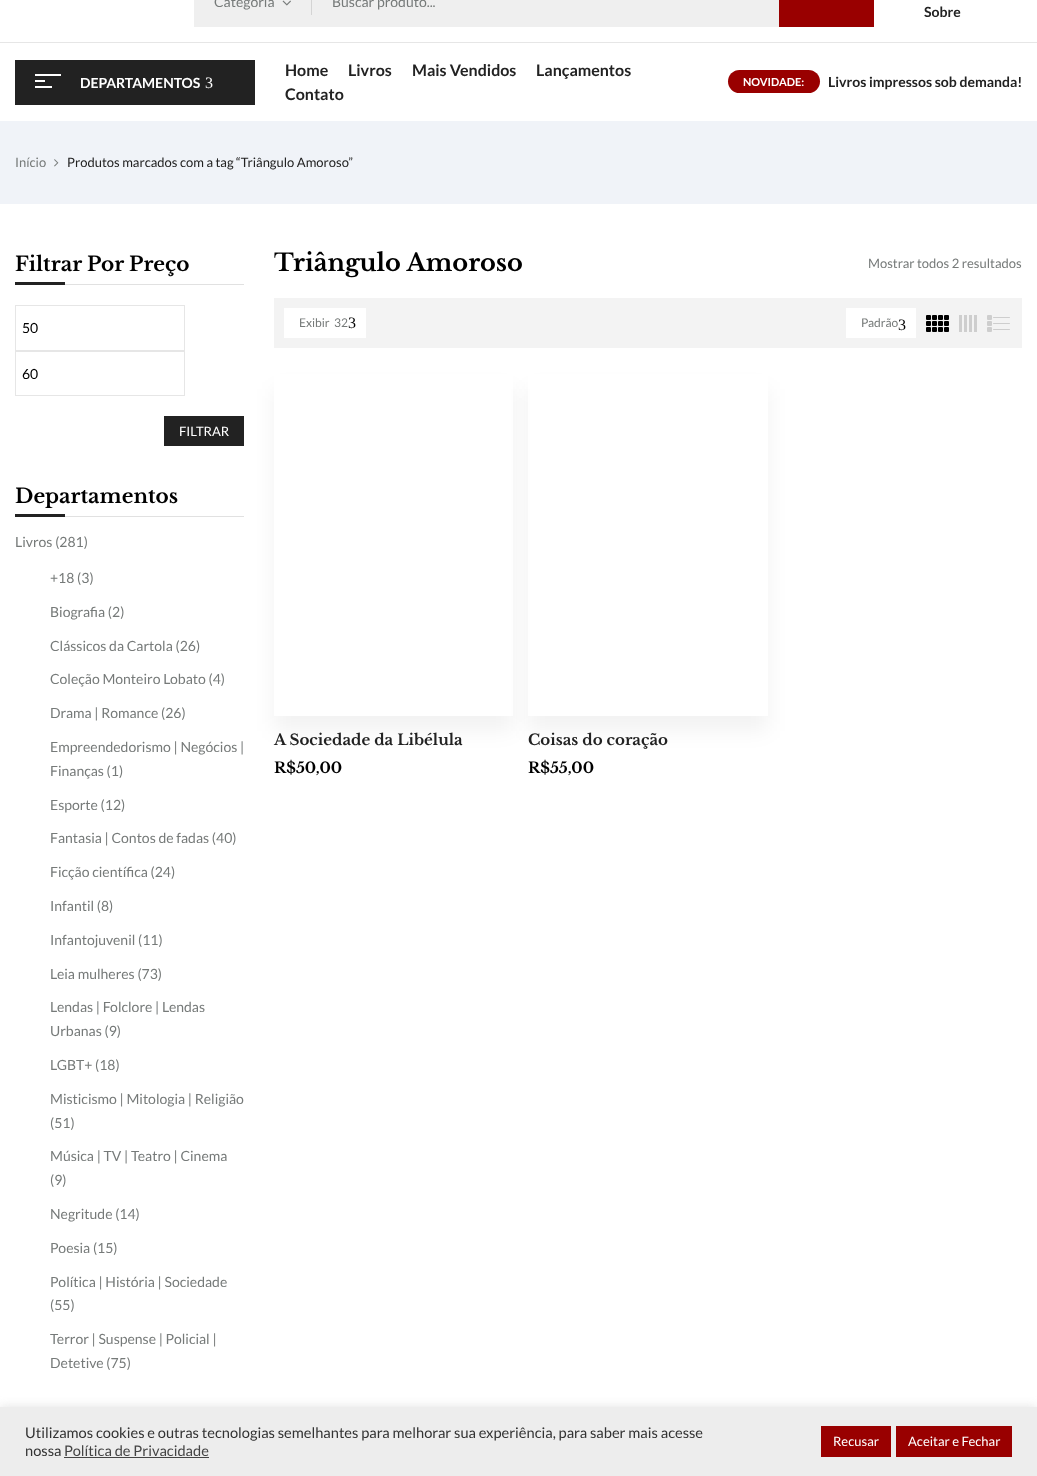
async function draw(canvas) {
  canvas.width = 1037;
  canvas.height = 1476;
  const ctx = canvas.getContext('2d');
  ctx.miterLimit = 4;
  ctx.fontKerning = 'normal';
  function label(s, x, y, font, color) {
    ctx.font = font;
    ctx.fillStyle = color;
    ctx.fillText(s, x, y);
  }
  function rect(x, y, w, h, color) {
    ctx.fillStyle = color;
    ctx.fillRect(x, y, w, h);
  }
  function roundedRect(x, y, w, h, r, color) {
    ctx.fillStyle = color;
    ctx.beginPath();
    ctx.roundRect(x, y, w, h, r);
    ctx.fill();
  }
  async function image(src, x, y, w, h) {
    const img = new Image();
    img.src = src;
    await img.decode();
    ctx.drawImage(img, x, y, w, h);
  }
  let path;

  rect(0, 0, 1037, 1476, '#fff');
  rect(0, 42, 1037, 1, '#e6e6e6');
  rect(194, 0, 585, 27, '#efefef');
  label('Categoria', 214, 7, '14px Lato', '#767a79');
  await image('assets/img1.png', 282, 0, 9, 6);
  rect(311, 0, 1, 15, '#d4d4d4');
  label('Buscar produto...', 332, 7, '14px Lato', '#767a79');
  rect(779, 0, 95, 27, '#900');
  label('Sobre', 924, 17, 'bold 14px Lato', '#222');
  rect(15, 60, 240, 45, '#222');
  rect(35, 80, 10, 2, '#fff');
  rect(35, 74, 26, 2, '#fff');
  rect(35, 86, 17, 2, '#fff');
  label('DEPARTAMENTOS', 80, 88, 'bold 14px Lato', '#fff');
  label('3', 205, 88, '16px Liberation Serif', '#fff');
  label('Home', 285, 76, 'bold 16px Lato', '#222');
  label('Livros', 348, 76, 'bold 16px Lato', '#222');
  label('Mais Vendidos', 412, 76, 'bold 16px Lato', '#222');
  label('Lançamentos', 536, 76, 'bold 16px Lato', '#222');
  label('Contato', 285, 100, 'bold 16px Lato', '#222');
  roundedRect(728, 70, 92, 23, 11.5, '#900');
  label('NOVIDADE:', 743, 86, 'bold 11px Lato', '#fff');
  label('Livros impressos sob demanda!', 828, 87, 'bold 14px Lato', '#222');
  rect(0, 121, 1037, 83, '#f0f3f8');
  label('Início', 15, 167, '13px Lato', '#767a79');
  await image('assets/img2.png', 54, 159, 5, 8);
  label('Produtos marcados com a tag “Triângulo Amoroso”', 67, 167, '13px Lato', '#222');
  rect(65, 284, 179, 1, '#e1e1e1');
  label('Filtrar Por Preço', 15, 271, 'bold 20px Libre Baskerville', '#000');
  rect(15, 282, 50, 3, '#222');
  ctx.strokeStyle = '#e6e6e6';
  ctx.strokeRect(15.5, 305.5, 169, 45);
  label('50', 22, 333, '14px Lato', '#000');
  ctx.strokeRect(15.5, 351.5, 169, 44);
  label('60', 22, 379, '14px Lato', '#000');
  rect(164, 416, 80, 30, '#222');
  label('FILTRAR', 179, 436, '13px Lato', '#fff');
  rect(65, 516, 179, 1, '#e1e1e1');
  label('Departamentos', 15, 503, 'bold 20px Libre Baskerville', '#000');
  rect(15, 514, 50, 3, '#222');
  label('Livros (281)', 15, 547, '14px Lato', '#767a79');
  label('+18 (3)', 50, 583, '14px Lato', '#767a79');
  label('Biografia (2)', 50, 617, '14px Lato', '#767a79');
  label('Clássicos da Cartola (26)', 50, 651, '14px Lato', '#767a79');
  label('Coleção Monteiro Lobato (4)', 50, 684, '14px Lato', '#767a79');
  label('Drama | Romance (26)', 50, 718, '14px Lato', '#767a79');
  label('Empreendedorismo | Negócios |', 50, 752, '14px Lato', '#767a79');
  label('Finanças (1)', 50, 776, '14px Lato', '#767a79');
  label('Esporte (12)', 50, 810, '14px Lato', '#767a79');
  label('Fantasia | Contos de fadas (40)', 50, 843, '14px Lato', '#767a79');
  label('Ficção científica (24)', 50, 877, '14px Lato', '#767a79');
  label('Infantil (8)', 50, 911, '14px Lato', '#767a79');
  label('Infantojuvenil (11)', 50, 945, '14px Lato', '#767a79');
  label('Leia mulheres (73)', 50, 979, '14px Lato', '#767a79');
  label('Lendas | Folclore | Lendas', 50, 1012, '14px Lato', '#767a79');
  label('Urbanas (9)', 50, 1036, '14px Lato', '#767a79');
  label('LGBT+ (18)', 50, 1070, '14px Lato', '#767a79');
  label('Misticismo | Mitologia | Religião', 50, 1104, '14px Lato', '#767a79');
  label('(51)', 50, 1128, '14px Lato', '#767a79');
  label('Música | TV | Teatro | Cinema', 50, 1161, '14px Lato', '#767a79');
  label('(9)', 50, 1185, '14px Lato', '#767a79');
  label('Negritude (14)', 50, 1219, '14px Lato', '#767a79');
  label('Poesia (15)', 50, 1253, '14px Lato', '#767a79');
  label('Política | História | Sociedade', 50, 1287, '14px Lato', '#767a79');
  label('(55)', 50, 1310, '14px Lato', '#767a79');
  label('Terror | Suspense | Policial |', 50, 1344, '14px Lato', '#767a79');
  label('Detetive (75)', 50, 1368, '14px Lato', '#767a79');
  label('Triângulo Amoroso', 274, 271, 'bold 24px Libre Baskerville', '#000');
  label('Mostrar todos 2 resultados', 868, 268, '13px Lato', '#767a79');
  rect(274, 298, 748, 50, '#f3f3f3');
  rect(284, 308, 82, 30, '#fff');
  label('Exibir', 299, 327, '12px Lato', '#767a79');
  label('32', 334, 327, '12px Lato', '#767a79');
  label('3', 348, 328, '16px Liberation Serif', '#000');
  rect(846, 308, 70, 30, '#fff');
  label('Padrão', 861, 327, '12px Lato', '#767a79');
  label('3', 898, 330, '16px Liberation Serif', '#000');
  roundedRect(926, 315, 5, 5, 1, '#000');
  roundedRect(932, 315, 5, 5, 1, '#000');
  roundedRect(938, 315, 5, 5, 1, '#000');
  roundedRect(944, 315, 5, 5, 1, '#000');
  roundedRect(926, 321, 5, 5, 1, '#000');
  roundedRect(932, 321, 5, 5, 1, '#000');
  roundedRect(938, 321, 5, 5, 1, '#000');
  roundedRect(944, 321, 5, 5, 1, '#000');
  roundedRect(926, 327, 5, 5, 1, '#000');
  roundedRect(932, 327, 5, 5, 1, '#000');
  roundedRect(938, 327, 5, 5, 1, '#000');
  roundedRect(944, 327, 5, 5, 1, '#000');
  rect(959, 315, 3, 17, '#cecece');
  rect(964, 315, 3, 17, '#cecece');
  rect(969, 315, 3, 17, '#cecece');
  rect(974, 315, 3, 17, '#cecece');
  roundedRect(987, 315, 5, 5, 1, '#cecece');
  roundedRect(993, 317, 17, 1, 0.5, '#cecece');
  roundedRect(987, 321, 5, 5, 1, '#cecece');
  roundedRect(993, 323, 17, 1, 0.5, '#cecece');
  roundedRect(987, 327, 5, 5, 1, '#cecece');
  roundedRect(993, 329, 17, 1, 0.5, '#cecece');
  ctx.save();
  path = new Path2D('M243 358H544V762H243ZM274 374H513V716H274Z');
  ctx.clip(path, 'evenodd');
  ctx.fillStyle = '#0000000d';
  ctx.filter = 'blur(10px)';
  ctx.beginPath();
  ctx.rect(274, 389, 239, 342);
  ctx.fill();
  ctx.filter = 'none';
  ctx.restore();
  label('A Sociedade da Libélula', 274, 745, 'bold 15px Libre Baskerville', '#222');
  label('R$50,00', 274, 773, 'bold 15px Libre Baskerville', '#000');
  ctx.save();
  path = new Path2D('M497 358H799V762H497ZM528 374H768V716H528Z');
  ctx.clip(path, 'evenodd');
  ctx.fillStyle = '#0000000d';
  ctx.filter = 'blur(10px)';
  ctx.beginPath();
  ctx.rect(528, 389, 240, 342);
  ctx.fill();
  ctx.filter = 'none';
  ctx.restore();
  label('Coisas do coração', 528, 745, 'bold 15px Libre Baskerville', '#222');
  label('R$55,00', 528, 773, 'bold 15px Libre Baskerville', '#000');
  ctx.fillStyle = '#acabab4d';
  ctx.filter = 'blur(5px)';
  ctx.beginPath();
  ctx.rect(0, 1406, 1037, 69);
  ctx.fill();
  ctx.filter = 'none';
  rect(0, 1407, 1037, 69, '#ededed');
  label('Utilizamos cookies e outras tecnologias semelhantes para melhorar sua experiência, para saber mais acesse', 25, 1438, '14.65px Lato', '#333');
  label('nossa', 25, 1456, '14.65px Lato', '#333');
  label('Política de Privacidade', 64, 1456, '14.65px Lato', '#444');
  rect(64, 1457, 145, 1, '#444');
  rect(821, 1426, 70, 31, '#900');
  label('Recusar', 833, 1446, '13px Lato', '#fff');
  rect(896, 1426, 116, 31, '#900');
  label('Aceitar e Fechar', 908, 1446, '13px Lato', '#fff');
}

draw(document.querySelector('canvas'));
